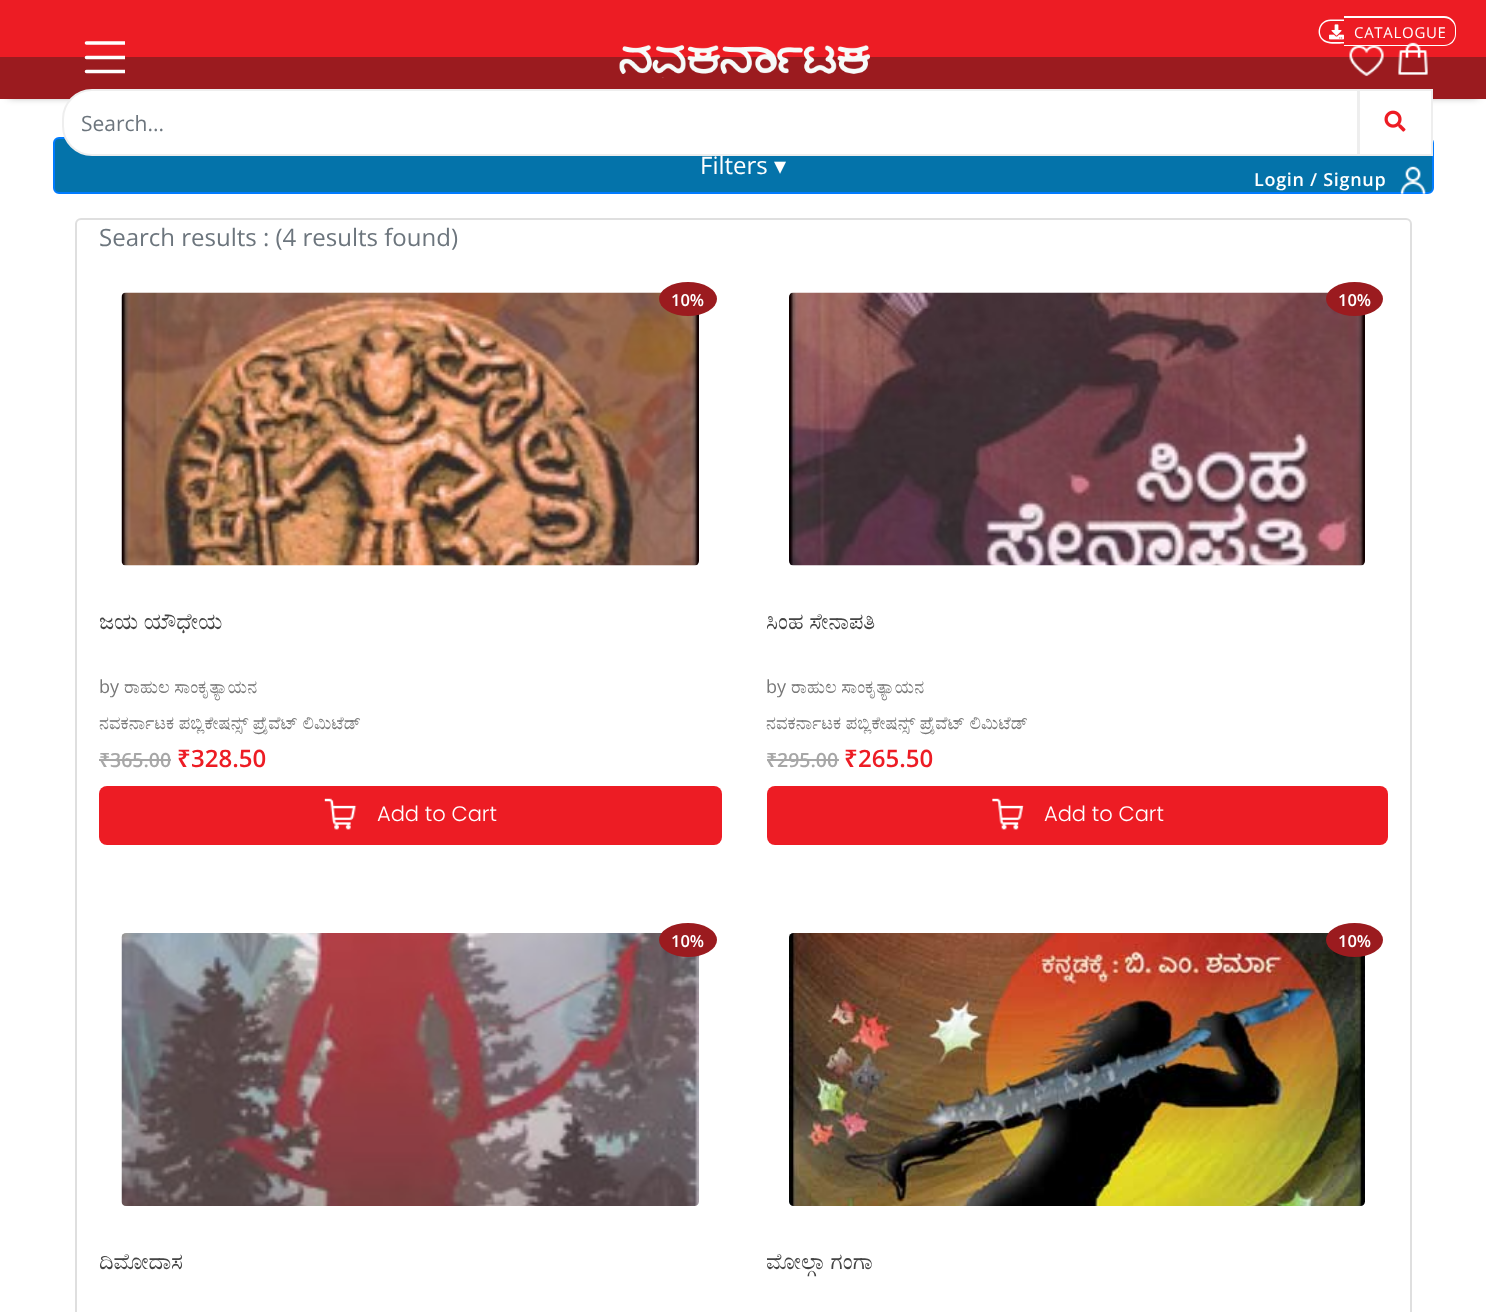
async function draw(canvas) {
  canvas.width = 1486;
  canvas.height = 1312;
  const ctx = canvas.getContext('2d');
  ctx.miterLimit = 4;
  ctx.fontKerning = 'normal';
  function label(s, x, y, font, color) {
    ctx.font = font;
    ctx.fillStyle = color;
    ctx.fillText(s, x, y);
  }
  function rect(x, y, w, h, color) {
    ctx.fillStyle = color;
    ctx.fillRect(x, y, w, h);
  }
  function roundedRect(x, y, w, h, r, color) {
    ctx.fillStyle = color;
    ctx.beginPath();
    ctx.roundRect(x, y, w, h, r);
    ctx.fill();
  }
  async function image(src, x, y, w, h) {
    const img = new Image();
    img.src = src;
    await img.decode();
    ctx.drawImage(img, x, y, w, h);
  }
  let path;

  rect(0, 0, 1486, 1312, '#fff');
  rect(0, 0, 1486, 57, '#ed1c24');
  ctx.fillStyle = '#fff';
  path = new Path2D('M1330.5 19.5H1344V43.5C1339 43.5 1330 44.5 1326 42.5C1314 37.5 1317.5 19.5 1330.5 19.5ZM1330.5 21H1344V42C1339.5 42 1330 42.5 1326.5 41C1316 37 1319 21 1330.5 21Z');
  ctx.fill(path, 'evenodd');
  path = new Path2D('M1344 16H1444C1451 16 1456 22 1456 28V34C1456 41 1451 46 1444 46H1344ZM1344 18H1444C1450 18 1455 23 1455 28V34C1455 40 1450 45 1444 45H1344Z');
  ctx.fill(path, 'evenodd');
  await image('assets/img1.png', 1329, 24, 15, 16);
  ctx.letterSpacing = '0.7px';
  label('CATALOGUE', 1354, 38, '15px Open Sans', '#fff');
  ctx.fillStyle = '#00000080';
  ctx.filter = 'blur(4.5px)';
  ctx.beginPath();
  ctx.rect(9, 72, 1469, 24);
  ctx.fill();
  ctx.filter = 'none';
  rect(0, 57, 1486, 42, '#9b1b1f');
  ctx.save();
  ctx.beginPath();
  ctx.rect(80, 29, 45, 45);
  ctx.clip();
  path = new Path2D('M86.5 43H130M86.5 57.5H130M86.5 71.5H130');
  ctx.strokeStyle = '#fff';
  ctx.lineWidth = 3.6;
  ctx.lineCap = 'round';
  ctx.stroke(path);
  ctx.restore();
  await image('assets/img2.png', 619, 45, 251, 33);
  await image('assets/img3.png', 1349, 46, 35, 31);
  await image('assets/img4.png', 1398, 42, 30, 33);
  ctx.fillStyle = '#0473aa';
  ctx.beginPath();
  ctx.roundRect(54, 138, 1379, 55, 5);
  ctx.fill();
  ctx.strokeStyle = '#007bff';
  ctx.lineWidth = 2;
  ctx.stroke();
  ctx.fillStyle = '#fff';
  ctx.beginPath();
  ctx.roundRect(63, 90, 1295, 65, [29, 0, 0, 29]);
  ctx.fill();
  ctx.strokeStyle = '#eee';
  ctx.stroke();
  ctx.letterSpacing = '0px';
  label('Search...', 81, 131, '21px Open Sans', '#6c757d');
  ctx.fillStyle = '#fff';
  ctx.beginPath();
  ctx.rect(1359, 90, 73, 65);
  ctx.fill();
  ctx.stroke();
  await image('assets/img5.png', 1384, 110, 22, 22);
  ctx.letterSpacing = '0.7px';
  label('Login / Signup', 1254, 186, '600 18px Open Sans', '#fff');
  await image('assets/img6.png', 1400, 166, 26, 28);
  ctx.letterSpacing = '0px';
  label('Filters', 700, 174, '24px Open Sans', '#fff');
  label('▾', 774, 174, '24px DejaVu Sans', '#fff');
  ctx.beginPath();
  ctx.roundRect(76, 219, 1335, 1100, 5);
  ctx.strokeStyle = '#dfdfdf';
  ctx.stroke();
  label('Search results : (4 results found)', 99, 246, '24px Open Sans', '#6c757d');
  await image('assets/img7.png', 121, 292, 578, 274);
  ctx.fillStyle = '#9b1b1f';
  ctx.beginPath();
  ctx.ellipse(688, 299, 29, 17, 0, 0, 2 * Math.PI);
  ctx.fill();
  label('10%', 671, 306, '600 16.5px Open Sans', '#fff');
  label('ಜಯ ಯೌಧೇಯ', 99, 629, '22.5px FreeSerif', '#444');
  label('by', 99, 693, '18px Open Sans', '#777');
  label('ರಾಹುಲ ಸಾಂಕೃತ್ಯಾಯನ', 124, 693, '18px FreeSerif', '#777');
  label('ನವಕರ್ನಾಟಕ ಪಬ್ಲಿಕೇಷನ್ಸ್ ಪ್ರೈವೆಟ್ ಲಿಮಿಟೆಡ್', 99, 729, '18px FreeSerif', '#777');
  label('₹', 99, 767, '600 19.5px Noto Sans', '#a7a7a7');
  rect(99, 759, 72, 2, '#a7a7a7');
  label('365.00', 110, 767, '600 19.5px Open Sans', '#a7a7a7');
  label('₹', 177, 767, '600 24px Noto Sans', '#ed1c24');
  label('328.50', 191, 767, '600 24px Open Sans', '#ed1c24');
  roundedRect(99, 786, 623, 59, 8, '#ed1c24');
  await image('assets/img8.png', 324, 798, 33, 32);
  label('Add to Cart', 377, 821, '300 21px Poppins', '#fff');
  await image('assets/img9.png', 789, 292, 576, 274);
  ctx.fillStyle = '#9b1b1f';
  ctx.beginPath();
  ctx.ellipse(1354.5, 299, 28.5, 17, 0, 0, 2 * Math.PI);
  ctx.fill();
  label('10%', 1338, 306, '600 16.5px Open Sans', '#fff');
  ctx.save();
  ctx.beginPath();
  ctx.rect(767, 603, 621, 63);
  ctx.clip();
  label('ಸಿಂಹ ಸೇನಾಪತಿ', 766, 629, '22.5px FreeSerif', '#444');
  ctx.restore();
  label('by', 766, 693, '18px Open Sans', '#777');
  label('ರಾಹುಲ ಸಾಂಕೃತ್ಯಾಯನ', 791, 693, '18px FreeSerif', '#777');
  label('ನವಕರ್ನಾಟಕ ಪಬ್ಲಿಕೇಷನ್ಸ್ ಪ್ರೈವೆಟ್ ಲಿಮಿಟೆಡ್', 766, 729, '18px FreeSerif', '#777');
  label('₹', 766, 767, '600 19.5px Noto Sans', '#a7a7a7');
  rect(767, 759, 72, 2, '#a7a7a7');
  label('295.00', 777, 767, '600 19.5px Open Sans', '#a7a7a7');
  label('₹', 844, 767, '600 24px Noto Sans', '#ed1c24');
  label('265.50', 858, 767, '600 24px Open Sans', '#ed1c24');
  roundedRect(767, 786, 621, 59, 8, '#ed1c24');
  await image('assets/img10.png', 992, 798, 32, 32);
  label('Add to Cart', 1044, 821, '300 21px Poppins', '#fff');
  await image('assets/img11.png', 121, 933, 578, 273);
  ctx.fillStyle = '#9b1b1f';
  ctx.beginPath();
  ctx.ellipse(688, 940, 29, 17, 0, 0, 2 * Math.PI);
  ctx.fill();
  label('10%', 671, 947, '600 16.5px Open Sans', '#fff');
  label('ದಿವೋದಾಸ', 99, 1269, '22.5px FreeSerif', '#444');
  await image('assets/img12.png', 789, 933, 576, 273);
  ctx.fillStyle = '#9b1b1f';
  ctx.beginPath();
  ctx.ellipse(1354.5, 940, 28.5, 17, 0, 0, 2 * Math.PI);
  ctx.fill();
  label('10%', 1338, 947, '600 16.5px Open Sans', '#fff');
  ctx.save();
  ctx.beginPath();
  ctx.rect(767, 1244, 621, 63);
  ctx.clip();
  label('ವೋಲ್ಗಾ ಗಂಗಾ', 766, 1269, '22.5px FreeSerif', '#444');
  ctx.restore();
}

draw(document.querySelector('canvas'));
